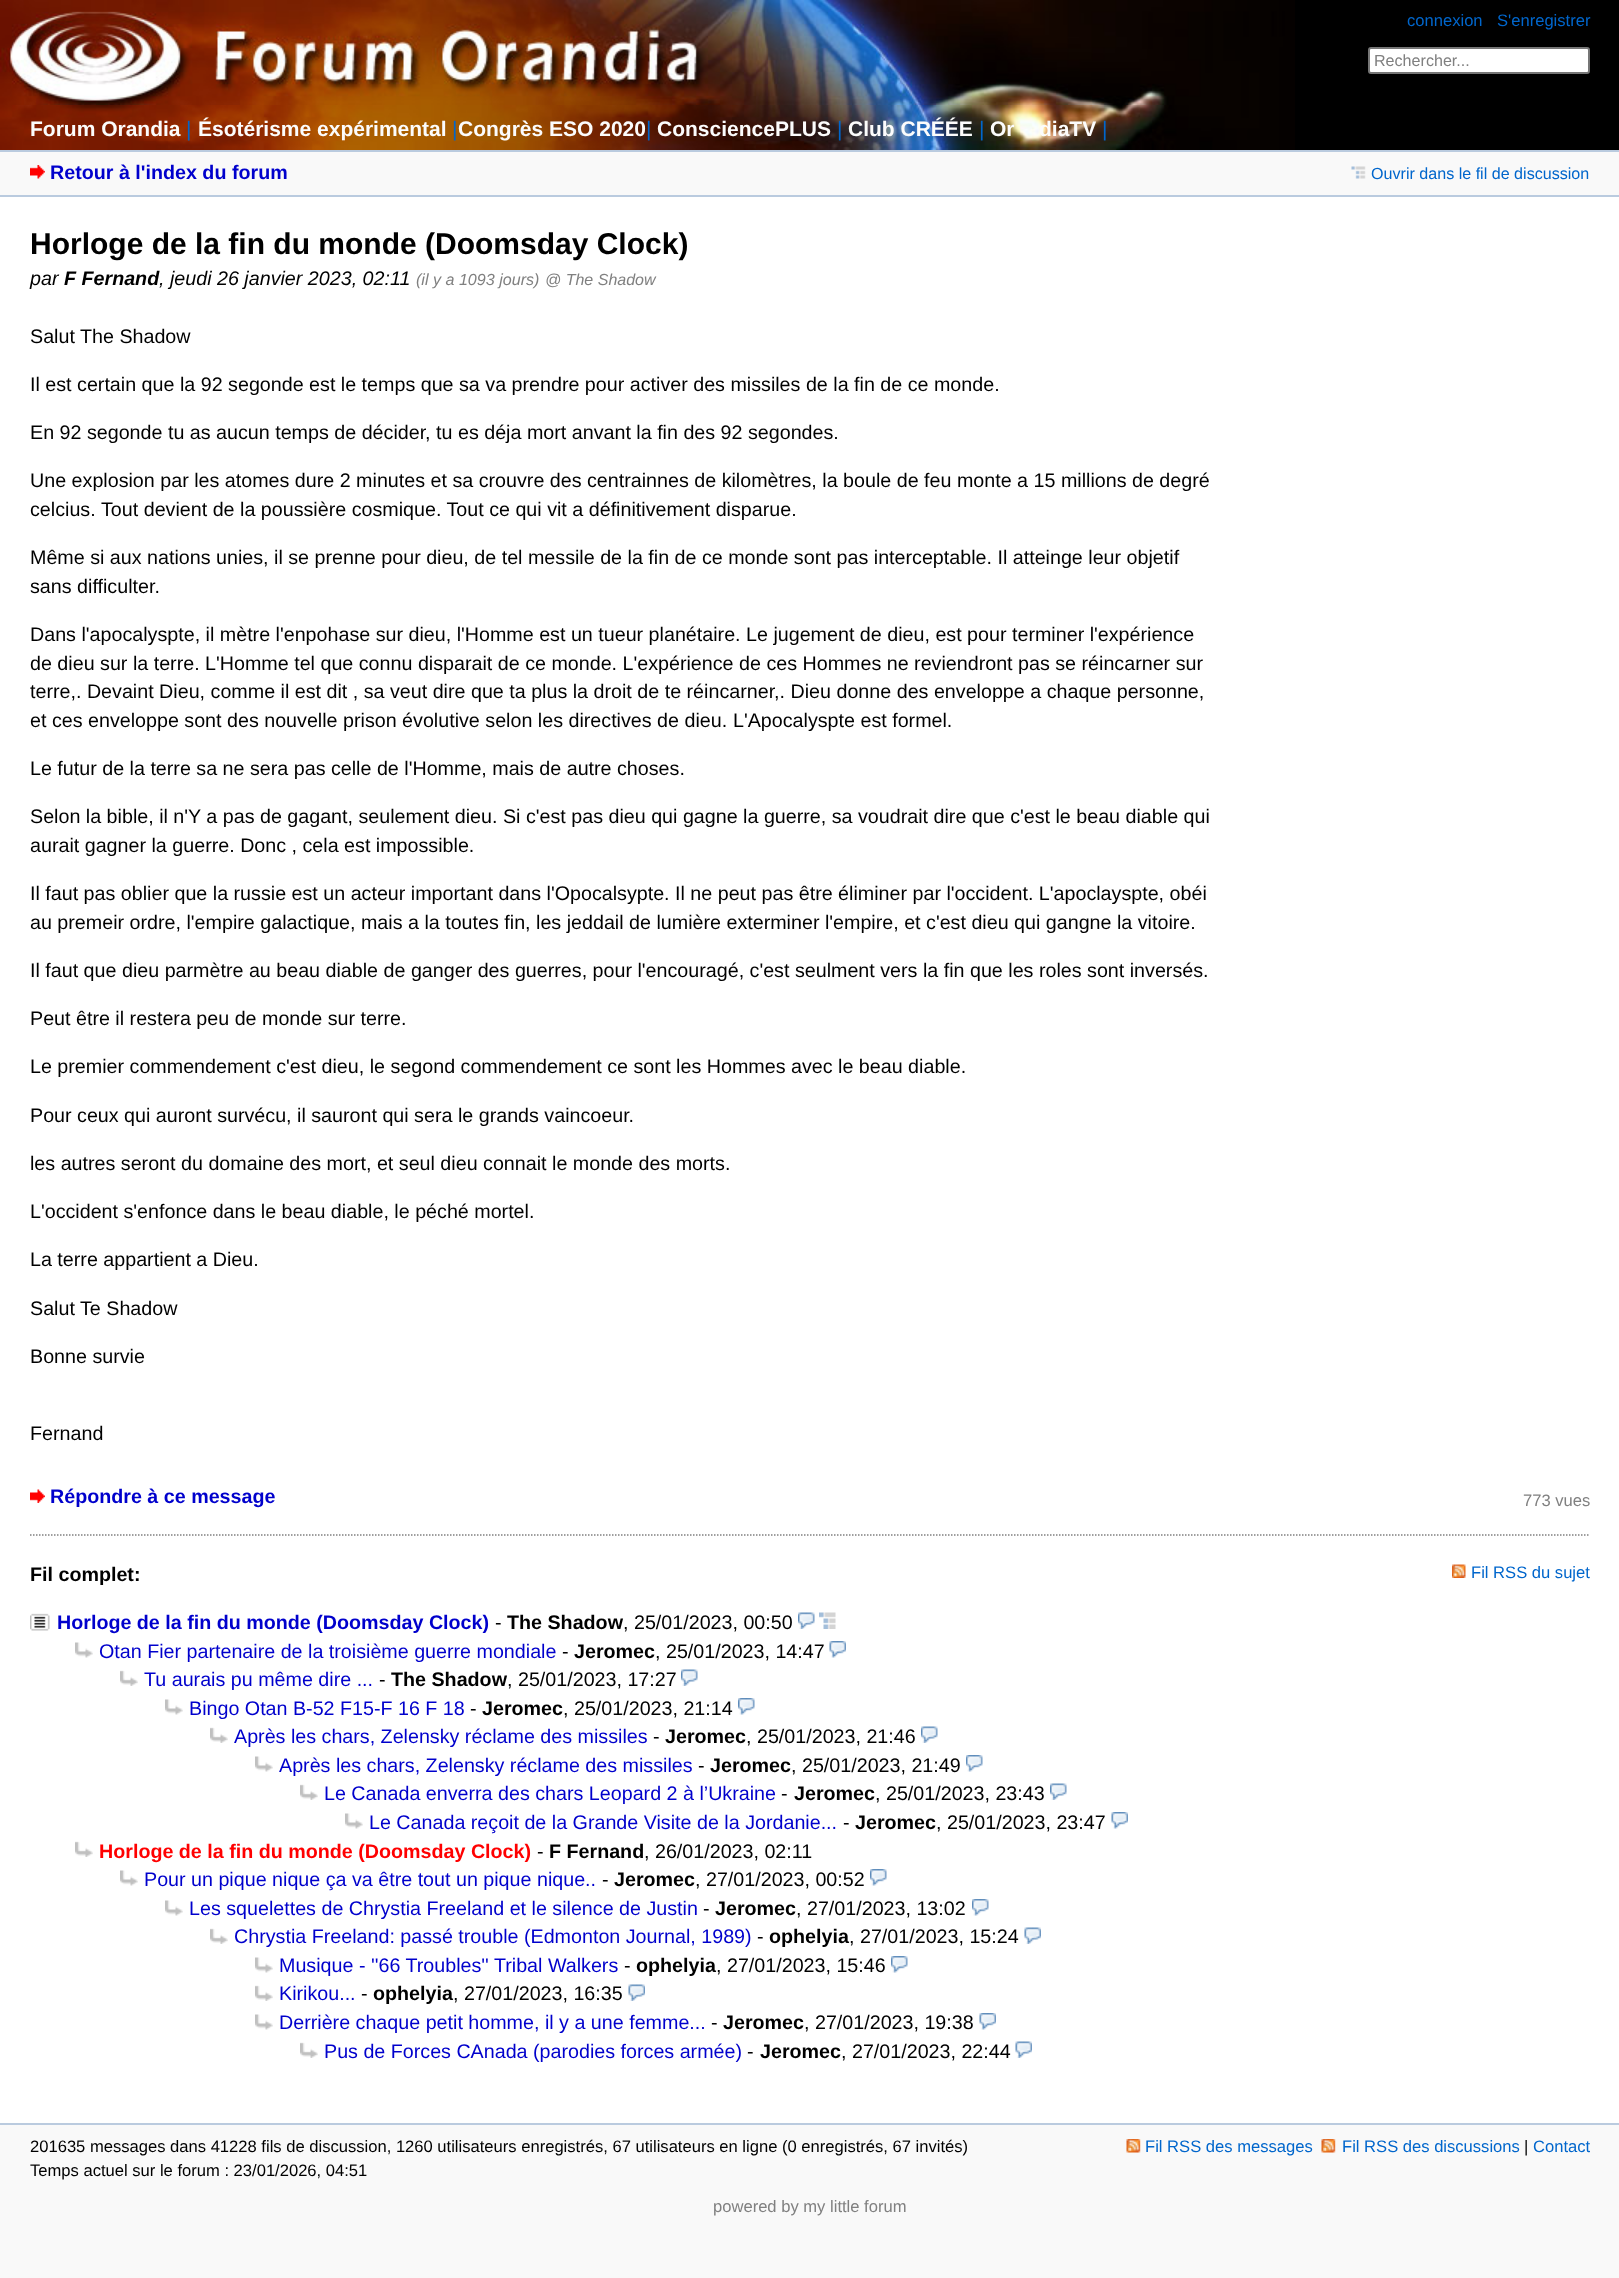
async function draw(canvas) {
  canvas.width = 1619;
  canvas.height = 2278;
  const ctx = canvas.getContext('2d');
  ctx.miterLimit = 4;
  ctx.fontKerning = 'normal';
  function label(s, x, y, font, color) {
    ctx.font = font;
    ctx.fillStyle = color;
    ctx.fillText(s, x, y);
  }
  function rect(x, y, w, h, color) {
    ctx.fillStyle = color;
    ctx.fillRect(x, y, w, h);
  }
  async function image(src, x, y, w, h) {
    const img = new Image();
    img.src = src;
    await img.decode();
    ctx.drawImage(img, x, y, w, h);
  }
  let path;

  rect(0, 0, 1619, 2278, '#f9f9f9');
  rect(1295, 0, 324, 150, '#000');
  await image('assets/img1.png', 0, 0, 1295, 105);
  label('connexion', 1407, 26, '16.58px Liberation Sans', '#06c');
  label('S\'enregistrer', 1497, 26, '16.58px Liberation Sans', '#06c');
  ctx.fillStyle = '#fff';
  ctx.beginPath();
  ctx.roundRect(1369, 48, 220, 25, 2);
  ctx.fill();
  ctx.strokeStyle = '#767676';
  ctx.lineWidth = 2;
  ctx.stroke();
  label('Rechercher...', 1374, 66, '16.1px Liberation Sans', '#808080');
  await image('assets/img2.png', 0, 105, 1295, 45);
  label('Forum Orandia', 30, 136, 'bold 21px Liberation Sans', '#fcfcfc');
  label('|', 186, 136, '21px Liberation Sans', '#06c');
  label('Ésotérisme expérimental', 198, 136, 'bold 21px Liberation Sans', '#fcfcfc');
  label('|', 452, 136, '21px Liberation Sans', '#06c');
  label('Congrès ESO 2020', 458, 136, 'bold 21px Liberation Sans', '#fcfcfc');
  label('|', 646, 136, '21px Liberation Sans', '#06c');
  label('ConsciencePLUS', 657, 136, 'bold 21px Liberation Sans', '#fcfcfc');
  label('|', 837, 136, '21px Liberation Sans', '#06c');
  label('Club CRÉÉE', 848, 136, 'bold 21px Liberation Sans', '#fcfcfc');
  label('|', 979, 136, '21px Liberation Sans', '#06c');
  label('Or', 990, 136, 'bold 21px Liberation Sans', '#fcfcfc');
  label('diaTV', 1039, 136, 'bold 21px Liberation Sans', '#fcfcfc');
  label('|', 1102, 136, '21px Liberation Sans', '#06c');
  rect(0, 150, 1619, 2, '#bacbdf');
  rect(0, 195, 1619, 2, '#bacbdf');
  await image('assets/img3.png', 30, 165, 15, 14);
  label('Retour à l\'index du forum', 50, 179, 'bold 19.7px Liberation Sans', '#00c');
  await image('assets/img4.png', 1351, 166, 15, 13);
  label('Ouvrir dans le fil de discussion', 1371, 179, '16.1px Liberation Sans', '#06c');
  rect(0, 197, 1619, 1926, '#fff');
  label('Horloge de la fin du monde (Doomsday Clock)', 30, 254, 'bold 30px Liberation Sans', '#000');
  label('par', 30, 285, 'italic 19.7px Liberation Sans', '#000');
  label('F Fernand', 64, 285, 'italic bold 19.7px Liberation Sans', '#000');
  label(', jeudi 26 janvier 2023, 02:11', 159, 285, 'italic 19.7px Liberation Sans', '#000');
  label('(il y a 1093 jours)', 416, 285, 'italic 16.1px Liberation Sans', '#808080');
  label('@ The Shadow', 545, 285, 'italic 16px Liberation Sans', '#808080');
  label('Salut The Shadow', 30, 343, '19.7px Liberation Sans', '#000');
  label('Il est certain que la 92 segonde est le temps que sa va prendre pour activer des missiles de la fin de ce monde.', 30, 391, '19.7px Liberation Sans', '#000');
  label('En 92 segonde tu as aucun temps de décider, tu es déja mort anvant la fin des 92 segondes.', 30, 439, '19.7px Liberation Sans', '#000');
  label('Une explosion par les atomes dure 2 minutes et sa crouvre des centrainnes de kilomètres, la boule de feu monte a 15 millions de degré', 30, 487, '19.7px Liberation Sans', '#000');
  label('celcius.', 30, 516, '19.7px Liberation Sans', '#000');
  label('Tout devient de la poussière cosmique. Tout ce qui vit a définitivement disparue.', 101, 516, '19.7px Liberation Sans', '#000');
  label('Même si aux nations unies, il se prenne pour dieu, de tel messile de la fin de ce monde sont pas interceptable. Il atteinge leur objetif', 30, 564, '19.7px Liberation Sans', '#000');
  label('sans difficulter.', 30, 593, '19.7px Liberation Sans', '#000');
  label('Dans l\'apocalyspte, il mètre l\'enpohase sur dieu, l\'Homme est un tueur planétaire. Le jugement de dieu, est pour terminer l\'expérience', 30, 641, '19.7px Liberation Sans', '#000');
  label('de dieu sur la terre. L\'Homme tel que connu disparait de ce monde. L\'expérience de ces Hommes ne reviendront pas se réincarner sur', 30, 670, '19.7px Liberation Sans', '#000');
  label('terre,. Devaint Dieu, comme il est dit , sa veut dire que ta plus la droit de te réincarner,. Dieu donne des enveloppe a chaque personne,', 30, 698, '19.7px Liberation Sans', '#000');
  label('et ces enveloppe sont des nouvelle prison évolutive selon les directives de dieu.', 30, 727, '19.7px Liberation Sans', '#000');
  label('L\'Apocalyspte est formel.', 733, 727, '19.7px Liberation Sans', '#000');
  label('Le futur de la terre sa ne sera pas celle de l\'Homme, mais de autre choses.', 30, 775, '19.7px Liberation Sans', '#000');
  label('Selon la bible, il n\'Y a pas de gagant, seulement dieu. Si c\'est pas dieu qui gagne la guerre, sa voudrait dire que c\'est le beau diable qui', 30, 823, '19.7px Liberation Sans', '#000');
  label('aurait gagner la guerre. Donc , cela est impossible.', 30, 852, '19.7px Liberation Sans', '#000');
  label('Il faut pas oblier que la russie est un acteur important dans l\'Opocalsypte. Il ne peut pas être éliminer par l\'occident. L\'apoclayspte, obéi', 30, 900, '19.7px Liberation Sans', '#000');
  label('au premeir ordre, l\'empire galactique, mais a la toutes fin, les jeddail de lumière exterminer l\'empire, et c\'est dieu qui gangne la vitoire.', 30, 929, '19.7px Liberation Sans', '#000');
  label('Il faut que dieu parmètre au beau diable de ganger des guerres, pour l\'encouragé, c\'est seulment vers la fin que les roles sont inversés.', 30, 977, '19.7px Liberation Sans', '#000');
  label('Peut être il restera peu de monde sur terre.', 30, 1025, '19.7px Liberation Sans', '#000');
  label('Le premier commendement c\'est dieu, le segond commendement ce sont les Hommes avec le beau diable.', 30, 1073, '19.7px Liberation Sans', '#000');
  label('Pour ceux qui auront survécu, il sauront qui sera le grands vaincoeur.', 30, 1122, '19.7px Liberation Sans', '#000');
  label('les autres seront du domaine des mort, et seul dieu connait le monde des morts.', 30, 1170, '19.7px Liberation Sans', '#000');
  label('L\'occident s\'enfonce dans le beau diable, le péché mortel.', 30, 1218, '19.7px Liberation Sans', '#000');
  label('La terre appartient a Dieu.', 30, 1266, '19.7px Liberation Sans', '#000');
  label('Salut Te Shadow', 30, 1315, '19.7px Liberation Sans', '#000');
  label('Bonne survie', 30, 1363, '19.7px Liberation Sans', '#000');
  label('Fernand', 30, 1440, '19.7px Liberation Sans', '#000');
  await image('assets/img5.png', 30, 1489, 15, 14);
  label('Répondre à ce message', 50, 1503, 'bold 19.7px Liberation Sans', '#00c');
  label('773 vues', 1523, 1506, '16.58px Liberation Sans', '#808080');
  path = new Path2D('M30 1535H1590');
  ctx.strokeStyle = '#808080';
  ctx.lineWidth = 1.5;
  ctx.setLineDash([1.5, 1.5]);
  ctx.stroke(path);
  label('Fil complet:', 30, 1581, 'bold 19.7px Liberation Sans', '#000');
  await image('assets/img6.png', 1452, 1564, 14, 14);
  label('Fil RSS du sujet', 1471, 1578, '16.58px Liberation Sans', '#06c');
  await image('assets/img7.png', 30, 1613, 20, 18);
  label('Horloge de la fin du monde (Doomsday Clock)', 57, 1629, 'bold 19.7px Liberation Sans', '#00c');
  label('-', 495, 1629, '19.7px Liberation Sans', '#000');
  label('The Shadow', 507, 1629, 'bold 19.7px Liberation Sans', '#000');
  label(', 25/01/2023, 00:50', 623, 1629, '19.7px Liberation Sans', '#000');
  await image('assets/img8.png', 798, 1612, 17, 17);
  await image('assets/img9.png', 819, 1612, 17, 17);
  await image('assets/img10.png', 75, 1642, 18, 16);
  label('Otan Fier partenaire de la troisième guerre mondiale', 99, 1658, '19.7px Liberation Sans', '#00c');
  label('-', 562, 1658, '19.7px Liberation Sans', '#000');
  label('Jeromec', 574, 1658, 'bold 19.7px Liberation Sans', '#000');
  label(', 25/01/2023, 14:47', 655, 1658, '19.7px Liberation Sans', '#000');
  await image('assets/img11.png', 829, 1641, 17, 17);
  await image('assets/img12.png', 120, 1670, 18, 16);
  label('Tu aurais pu même dire ...', 144, 1686, '19.7px Liberation Sans', '#00c');
  label('-', 379, 1686, '19.7px Liberation Sans', '#000');
  label('The Shadow', 391, 1686, 'bold 19.7px Liberation Sans', '#000');
  label(', 25/01/2023, 17:27', 507, 1686, '19.7px Liberation Sans', '#000');
  await image('assets/img8.png', 681, 1669, 17, 17);
  await image('assets/img10.png', 165, 1699, 18, 16);
  label('Bingo Otan B-52 F15-F 16 F 18', 189, 1715, '19.7px Liberation Sans', '#00c');
  label('-', 470, 1715, '19.7px Liberation Sans', '#000');
  label('Jeromec', 482, 1715, 'bold 19.7px Liberation Sans', '#000');
  label(', 25/01/2023, 21:14', 563, 1715, '19.7px Liberation Sans', '#000');
  await image('assets/img13.png', 738, 1698, 17, 17);
  await image('assets/img12.png', 210, 1727, 18, 16);
  label('Après les chars, Zelensky réclame des missiles', 234, 1743, '19.7px Liberation Sans', '#00c');
  label('-', 653, 1743, '19.7px Liberation Sans', '#000');
  label('Jeromec', 665, 1743, 'bold 19.7px Liberation Sans', '#000');
  label(', 25/01/2023, 21:46', 746, 1743, '19.7px Liberation Sans', '#000');
  await image('assets/img8.png', 921, 1726, 17, 17);
  await image('assets/img10.png', 255, 1756, 18, 16);
  label('Après les chars, Zelensky réclame des missiles', 279, 1772, '19.7px Liberation Sans', '#00c');
  label('-', 698, 1772, '19.7px Liberation Sans', '#000');
  label('Jeromec', 710, 1772, 'bold 19.7px Liberation Sans', '#000');
  label(', 25/01/2023, 21:49', 791, 1772, '19.7px Liberation Sans', '#000');
  await image('assets/img14.png', 966, 1755, 17, 17);
  await image('assets/img15.png', 300, 1784, 18, 16);
  label('Le Canada enverra des chars Leopard 2 à l’Ukraine', 324, 1800, '19.7px Liberation Sans', '#00c');
  label('-', 781, 1800, '19.7px Liberation Sans', '#000');
  label('Jeromec', 794, 1800, 'bold 19.7px Liberation Sans', '#000');
  label(', 25/01/2023, 23:43', 875, 1800, '19.7px Liberation Sans', '#000');
  await image('assets/img16.png', 1050, 1783, 17, 17);
  await image('assets/img17.png', 345, 1813, 18, 16);
  label('Le Canada reçoit de la Grande Visite de la Jordanie...', 369, 1829, '19.7px Liberation Sans', '#00c');
  label('-', 843, 1829, '19.7px Liberation Sans', '#000');
  label('Jeromec', 855, 1829, 'bold 19.7px Liberation Sans', '#000');
  label(', 25/01/2023, 23:47', 936, 1829, '19.7px Liberation Sans', '#000');
  await image('assets/img11.png', 1111, 1812, 17, 17);
  await image('assets/img12.png', 75, 1841, 18, 16);
  label('Horloge de la fin du monde (Doomsday Clock)', 99, 1858, 'bold 19.7px Liberation Sans', '#f00');
  label('-', 537, 1858, '19.7px Liberation Sans', '#000');
  label('F Fernand', 549, 1858, 'bold 19.7px Liberation Sans', '#000');
  label(', 26/01/2023, 02:11', 644, 1858, '19.7px Liberation Sans', '#000');
  await image('assets/img10.png', 120, 1870, 18, 16);
  label('Pour un pique nique ça va être tout un pique nique..', 144, 1886, '19.7px Liberation Sans', '#00c');
  label('-', 602, 1886, '19.7px Liberation Sans', '#000');
  label('Jeromec', 614, 1886, 'bold 19.7px Liberation Sans', '#000');
  label(', 27/01/2023, 00:52', 695, 1886, '19.7px Liberation Sans', '#000');
  await image('assets/img14.png', 870, 1869, 17, 17);
  await image('assets/img10.png', 165, 1900, 18, 16);
  label('Les squelettes de Chrystia Freeland et le silence de Justin', 189, 1915, '19.7px Liberation Sans', '#00c');
  label('-', 703, 1915, '19.7px Liberation Sans', '#000');
  label('Jeromec', 715, 1915, 'bold 19.7px Liberation Sans', '#000');
  label(', 27/01/2023, 13:02', 796, 1915, '19.7px Liberation Sans', '#000');
  await image('assets/img14.png', 972, 1899, 17, 17);
  await image('assets/img12.png', 210, 1928, 18, 16);
  label('Chrystia Freeland: passé trouble (Edmonton Journal, 1989)', 234, 1943, '19.7px Liberation Sans', '#00c');
  label('-', 757, 1943, '19.7px Liberation Sans', '#000');
  label('ophelyia', 769, 1943, 'bold 19.7px Liberation Sans', '#000');
  label(', 27/01/2023, 15:24', 849, 1943, '19.7px Liberation Sans', '#000');
  await image('assets/img18.png', 1024, 1927, 17, 17);
  await image('assets/img10.png', 255, 1957, 18, 16);
  label('Musique - \'\'66 Troubles\'\' Tribal Walkers', 279, 1972, '19.7px Liberation Sans', '#00c');
  label('-', 624, 1972, '19.7px Liberation Sans', '#000');
  label('ophelyia', 636, 1972, 'bold 19.7px Liberation Sans', '#000');
  label(', 27/01/2023, 15:46', 716, 1972, '19.7px Liberation Sans', '#000');
  await image('assets/img14.png', 891, 1956, 17, 17);
  await image('assets/img12.png', 255, 1985, 18, 16);
  label('Kirikou...', 279, 2000, '19.7px Liberation Sans', '#00c');
  label('-', 361, 2000, '19.7px Liberation Sans', '#000');
  label('ophelyia', 373, 2000, 'bold 19.7px Liberation Sans', '#000');
  label(', 27/01/2023, 16:35', 453, 2000, '19.7px Liberation Sans', '#000');
  await image('assets/img19.png', 628, 1984, 17, 17);
  await image('assets/img10.png', 255, 2014, 18, 16);
  label('Derrière chaque petit homme, il y a une femme...', 279, 2029, '19.7px Liberation Sans', '#00c');
  label('-', 711, 2029, '19.7px Liberation Sans', '#000');
  label('Jeromec', 723, 2029, 'bold 19.7px Liberation Sans', '#000');
  label(', 27/01/2023, 19:38', 804, 2029, '19.7px Liberation Sans', '#000');
  await image('assets/img11.png', 979, 2013, 17, 17);
  await image('assets/img15.png', 300, 2042, 18, 16);
  label('Pus de Forces CAnada (parodies forces armée)', 324, 2058, '19.7px Liberation Sans', '#00c');
  label('-', 747, 2058, '19.7px Liberation Sans', '#000');
  label('Jeromec', 760, 2058, 'bold 19.7px Liberation Sans', '#000');
  label(', 27/01/2023, 22:44', 841, 2058, '19.7px Liberation Sans', '#000');
  await image('assets/img20.png', 1015, 2041, 17, 17);
  rect(0, 2123, 1619, 2, '#bacbdf');
  label('201635 messages dans 41228 fils de discussion, 1260 utilisateurs enregistrés, 67 utilisateurs en ligne (0 enregistrés, 67 invités)', 30, 2152, '16.58px Liberation Sans', '#000');
  label('Temps actuel sur le forum : 23/01/2026, 04:51', 30, 2176, '16.58px Liberation Sans', '#000');
  await image('assets/img21.png', 1126, 2139, 15, 14);
  label('Fil RSS des messages', 1145, 2152, '16.58px Liberation Sans', '#06c');
  await image('assets/img21.png', 1321, 2139, 15, 14);
  label('Fil RSS des discussions', 1342, 2152, '16.58px Liberation Sans', '#06c');
  label('|', 1524, 2152, '16.58px Liberation Sans', '#000');
  label('Contact', 1533, 2152, '16.58px Liberation Sans', '#06c');
  label('powered by my little forum', 713, 2212, '16.58px Liberation Sans', '#808080');
}

draw(document.querySelector('canvas'));
